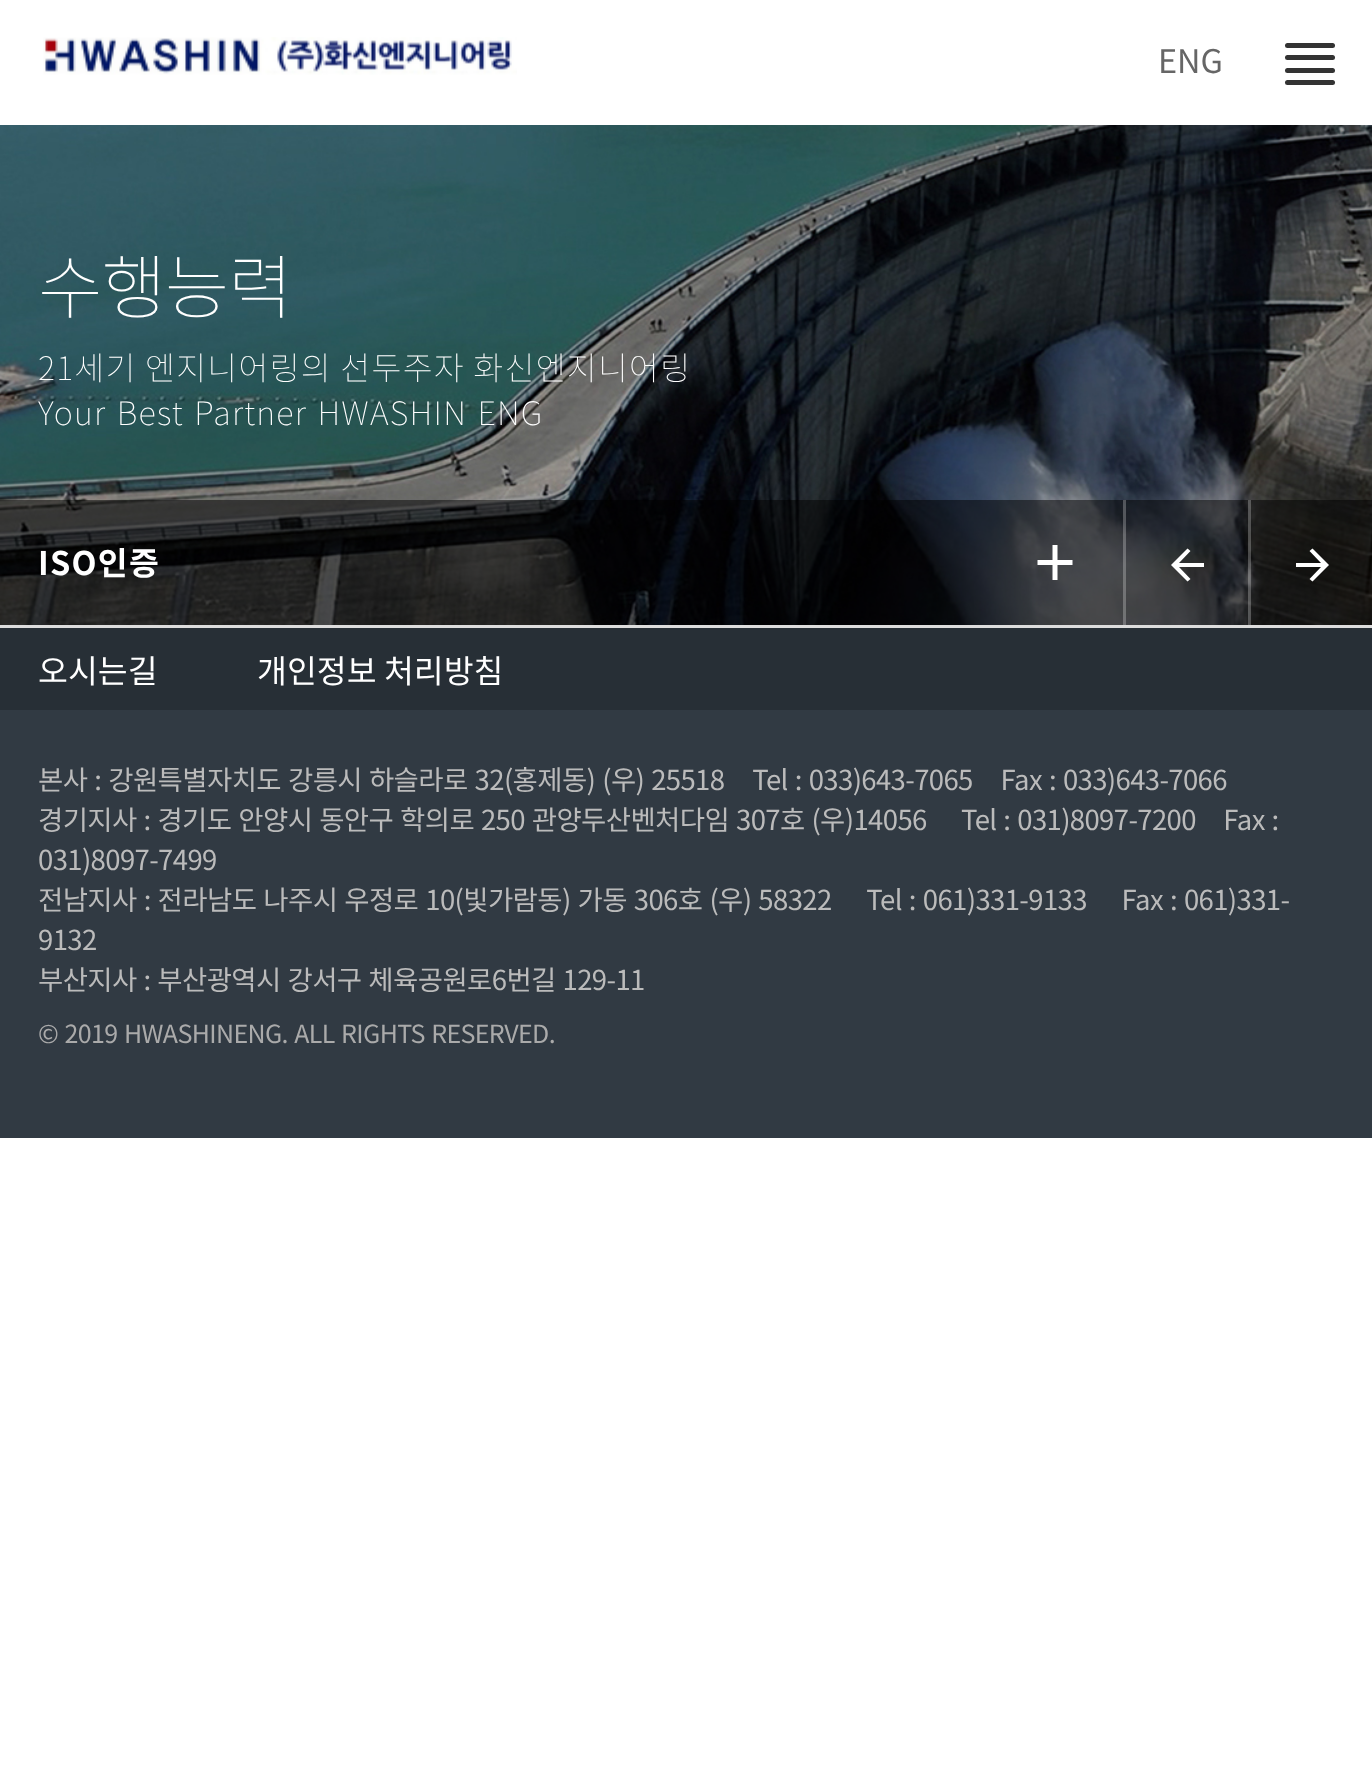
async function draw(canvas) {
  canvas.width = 1372;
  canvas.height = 1792;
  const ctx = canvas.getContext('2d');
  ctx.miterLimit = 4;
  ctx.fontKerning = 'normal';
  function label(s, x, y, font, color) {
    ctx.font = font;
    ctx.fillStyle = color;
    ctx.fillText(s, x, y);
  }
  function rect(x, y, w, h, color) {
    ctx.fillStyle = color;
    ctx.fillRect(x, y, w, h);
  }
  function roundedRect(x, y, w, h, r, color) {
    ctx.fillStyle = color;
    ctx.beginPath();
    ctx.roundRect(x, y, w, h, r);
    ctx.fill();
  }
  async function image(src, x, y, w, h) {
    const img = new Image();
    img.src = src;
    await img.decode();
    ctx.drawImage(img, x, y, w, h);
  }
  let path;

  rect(0, 0, 1372, 1792, '#fff');
  await image('assets/img1.png', 43, 37, 474, 38);
  label('ENG', 1158, 73, '32.5px Noto Sans KR', '#666');
  roundedRect(1285, 43, 50, 5, 2.5, '#333');
  roundedRect(1285, 55, 50, 5, 2.5, '#333');
  roundedRect(1285, 68, 50, 5, 2.5, '#333');
  roundedRect(1285, 80, 50, 5, 2.5, '#333');
  await image('assets/img2.png', 0, 125, 1372, 500);
  ctx.letterSpacing = '-1px';
  label('수행능력', 38, 313, '100 70px Noto Sans KR', '#fff');
  ctx.letterSpacing = '1.25px';
  label('21세기 엔지니어링의 선두주자 화신엔지니어링', 38, 380, '100 32.5px Noto Sans KR', '#fff');
  ctx.wordSpacing = '2px';
  label('Your Best Partner HWASHIN ENG', 38, 425, '100 32.5px Noto Sans KR', '#fff');
  rect(0, 500, 1372, 125, '#00000080');
  ctx.wordSpacing = '0px';
  label('ISO인증', 38, 575, 'bold 32.5px Noto Sans KR', '#fff');
  path = new Path2D('M1072.5 565H1057.5V580H1052.5V565H1037.5V560H1052.5V545H1057.5V560H1072.5Z');
  ctx.fill(path);
  rect(1123, 500, 3, 125, '#ffffff40');
  ctx.fillStyle = '#fff';
  path = new Path2D('M1204 563V567H1179L1190.5 579L1187.5 581.5L1171 565L1187.5 548.5L1190.5 551L1179 563Z');
  ctx.fill(path);
  rect(1248, 500, 3, 125, '#ffffff40');
  ctx.fillStyle = '#fff';
  path = new Path2D('M1312.5 548.5L1329 565L1312.5 581.5L1309.5 579L1321 567H1296V563H1321L1309.5 551Z');
  ctx.fill(path);
  rect(0, 710, 1372, 428, '#313a43');
  rect(0, 628, 1372, 82, '#272f36');
  rect(0, 625, 1372, 3, '#ddd');
  ctx.letterSpacing = '0px';
  label('오시는길', 38, 683, '32.5px Noto Sans KR', '#fff');
  label('개인정보 처리방침', 257, 683, '32.5px Noto Sans KR', '#fff');
  ctx.letterSpacing = '-0.62px';
  ctx.wordSpacing = '1.4px';
  label('본사 : 강원특별자치도 강릉시 하슬라로 32(홍제동) (우) 25518    Tel : 033)643-7065    Fax : 033)643-7066', 38, 790, '27.5px Noto Sans KR', '#bbb');
  ctx.wordSpacing = '1.3px';
  label('경기지사 : 경기도 안양시 동안구 학의로 250 관양두산벤처다임 307호 (우)14056     Tel : 031)8097-7200    Fax :', 38, 830, '27.5px Noto Sans KR', '#bbb');
  ctx.wordSpacing = '0px';
  label('031)8097-7499', 38, 870, '27.5px Noto Sans KR', '#bbb');
  ctx.wordSpacing = '1.4px';
  label('전남지사 : 전라남도 나주시 우정로 10(빛가람동) 가동 306호 (우) 58322     Tel : 061)331-9133     Fax : 061)331-', 38, 910, '27.5px Noto Sans KR', '#bbb');
  ctx.wordSpacing = '0px';
  label('9132', 38, 950, '27.5px Noto Sans KR', '#bbb');
  ctx.wordSpacing = '1.25px';
  label('부산지사 : 부산광역시 강서구 체육공원로6번길 129-11', 38, 990, '27.5px Noto Sans KR', '#bbb');
  ctx.wordSpacing = '1.4px';
  label('© 2019 HWASHINENG. ALL RIGHTS RESERVED.', 38, 1043, '25px Noto Sans KR', '#aaa');
}

draw(document.querySelector('canvas'));
